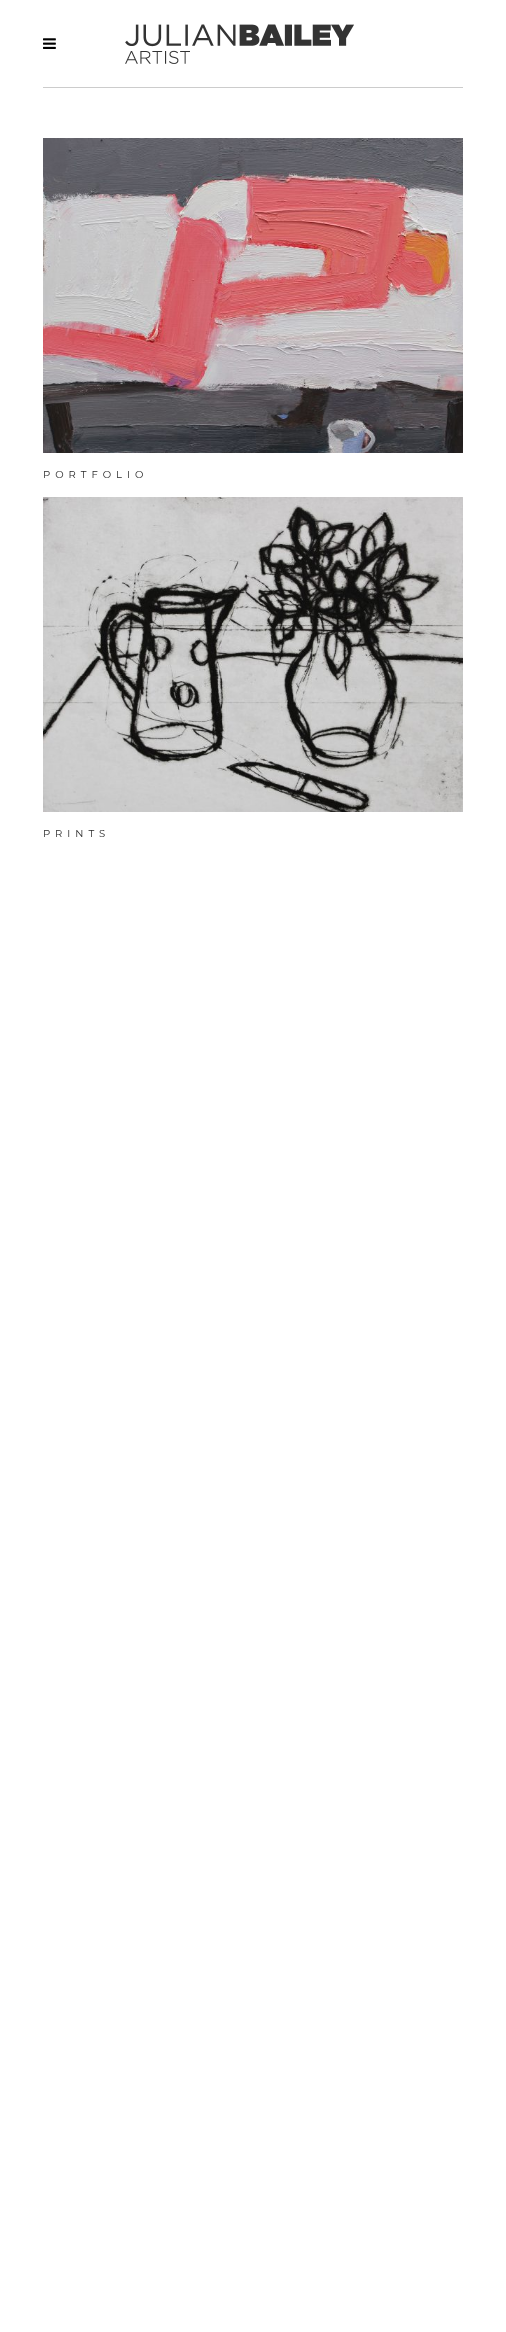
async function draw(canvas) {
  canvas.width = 506;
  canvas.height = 2332;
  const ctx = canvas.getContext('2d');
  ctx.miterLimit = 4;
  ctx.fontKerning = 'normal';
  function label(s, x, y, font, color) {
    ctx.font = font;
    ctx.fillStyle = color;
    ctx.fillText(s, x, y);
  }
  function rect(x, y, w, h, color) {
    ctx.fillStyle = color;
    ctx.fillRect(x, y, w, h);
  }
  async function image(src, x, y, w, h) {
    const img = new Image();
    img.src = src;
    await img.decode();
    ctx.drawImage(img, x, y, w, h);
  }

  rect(0, 0, 506, 2332, '#fff');
  rect(43, 87, 420, 1, '#ccc');
  await image('assets/img1.png', 43, 38, 13, 11);
  await image('assets/img2.png', 125, 24, 229, 40);
  await image('assets/img3.png', 43, 138, 420, 315);
  ctx.letterSpacing = '5px';
  label('PORTFOLIO', 43, 478, '10px Montserrat', '#282828');
  await image('assets/img4.png', 43, 497, 420, 315);
  label('PRINTS', 43, 837, '10px Montserrat', '#282828');
}

draw(document.querySelector('canvas'));
